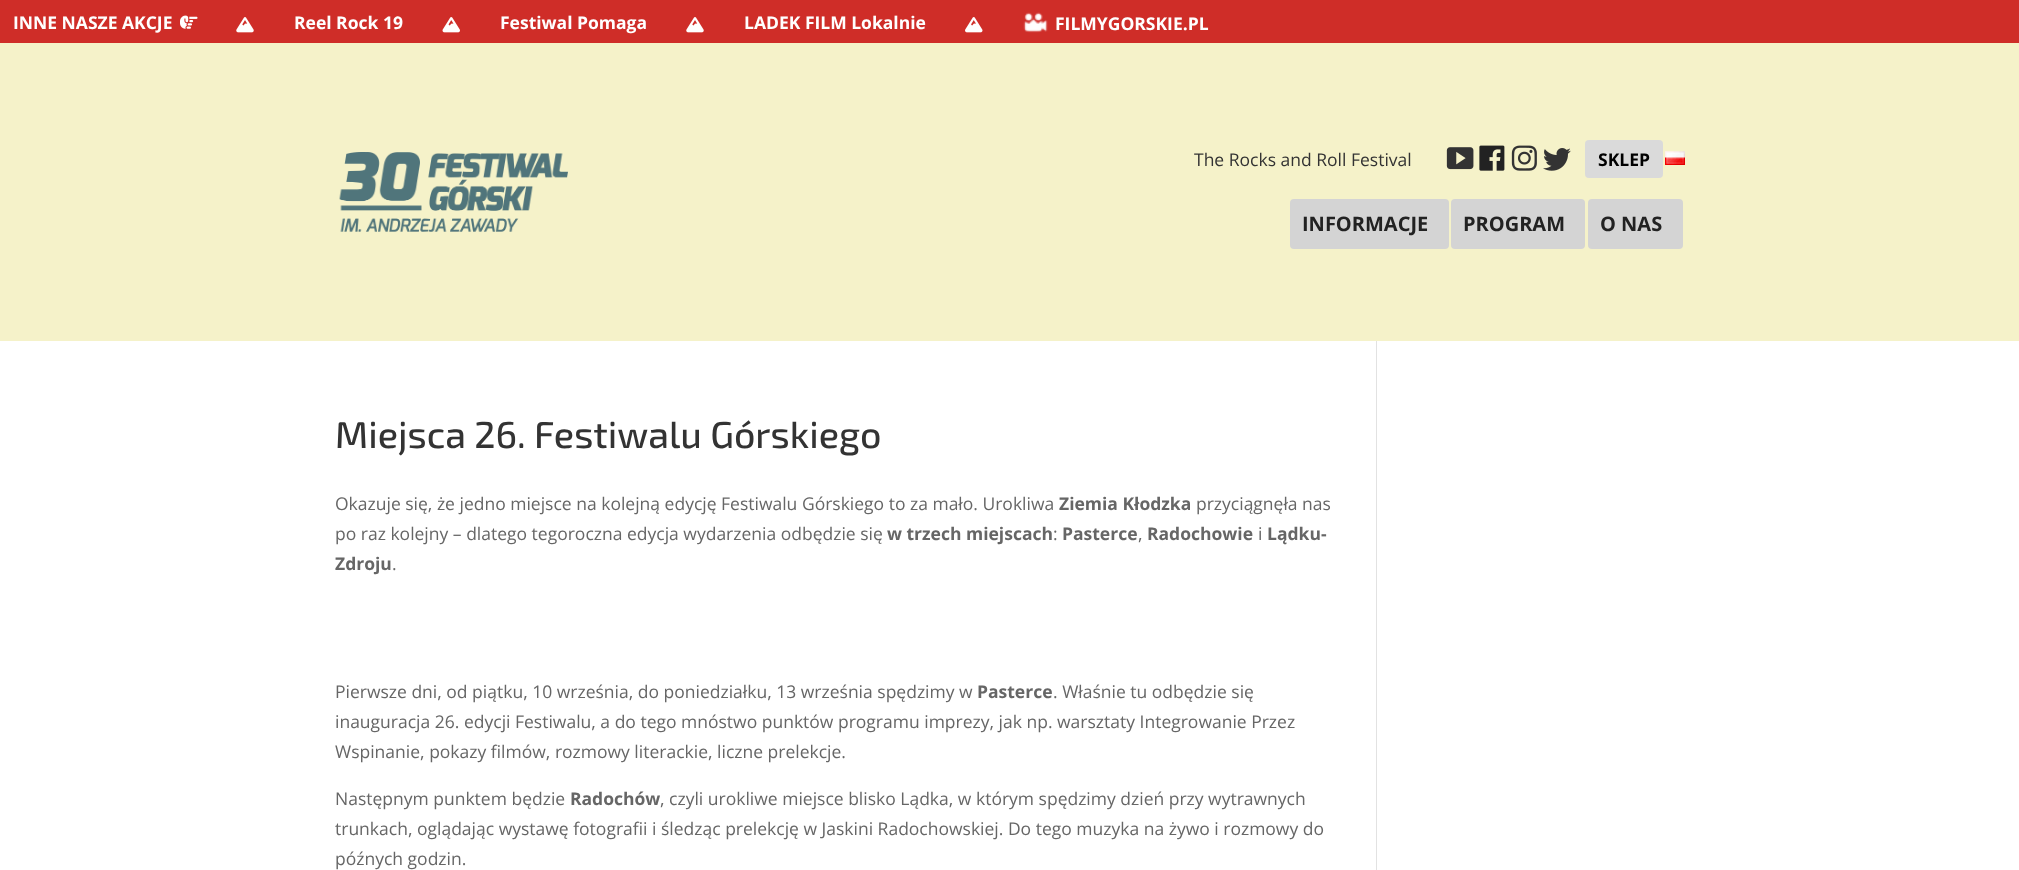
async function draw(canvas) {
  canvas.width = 2019;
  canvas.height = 870;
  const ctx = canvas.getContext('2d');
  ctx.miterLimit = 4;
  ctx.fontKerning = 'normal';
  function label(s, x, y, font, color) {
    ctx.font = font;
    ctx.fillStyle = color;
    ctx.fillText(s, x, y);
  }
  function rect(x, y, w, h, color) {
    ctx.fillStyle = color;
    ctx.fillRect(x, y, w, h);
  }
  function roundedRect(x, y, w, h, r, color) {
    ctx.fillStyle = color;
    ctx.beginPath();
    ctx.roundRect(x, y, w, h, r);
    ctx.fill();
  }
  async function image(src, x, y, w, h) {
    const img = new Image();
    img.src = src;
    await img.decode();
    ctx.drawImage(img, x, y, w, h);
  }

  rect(0, 0, 2019, 870, '#f5f2c9');
  rect(0, 0, 2019, 43, '#cf2d28');
  label('INNE NASZE AKCJE', 13, 29, 'bold 17.5px Open Sans', '#fff');
  await image('assets/img1.png', 180, 15, 18, 14);
  await image('assets/img2.png', 236, 17, 18, 16);
  label('Reel Rock 19', 294, 29, 'bold 17.5px Open Sans', '#fff');
  await image('assets/img3.png', 442, 17, 18, 16);
  label('Festiwal Pomaga', 500, 29, 'bold 17.5px Open Sans', '#fff');
  await image('assets/img2.png', 686, 17, 18, 16);
  label('LADEK FILM Lokalnie', 744, 29, 'bold 17.5px Open Sans', '#fff');
  await image('assets/img4.png', 965, 17, 18, 16);
  await image('assets/img5.png', 1023, 12, 25, 21);
  label('FILMYGORSKIE.PL', 1055, 30, 'bold 17.5px Open Sans', '#fff');
  await image('assets/img6.png', 339, 152, 229, 80);
  label('The Rocks and Roll Festival', 1194, 166, '17.5px Open Sans', '#333');
  await image('assets/img7.png', 1446, 147, 28, 23);
  await image('assets/img8.png', 1479, 145, 26, 26);
  await image('assets/img9.png', 1511, 145, 26, 26);
  await image('assets/img10.png', 1543, 148, 28, 23);
  roundedRect(1585, 140, 78, 38, 4, '#dadada');
  label('SKLEP', 1598, 166, 'bold 17.5px Open Sans', '#000');
  await image('assets/img11.png', 1665, 151, 20, 14);
  roundedRect(1290, 199, 159, 50, 4, '#d4d4d4');
  label('INFORMACJE', 1302, 231, 'bold 20px Open Sans', '#222');
  roundedRect(1451, 199, 134, 50, 4, '#d4d4d4');
  label('PROGRAM', 1463, 231, 'bold 20px Open Sans', '#222');
  roundedRect(1588, 199, 95, 50, 4, '#d4d4d4');
  label('O NAS', 1600, 231, 'bold 20px Open Sans', '#222');
  rect(0, 341, 2019, 529, '#fff');
  label('Miejsca 26. Festiwalu Górskiego', 335, 448, '500 37.5px "Exo 2"', '#333');
  label('Okazuje się, że jedno miejsce na kolejną edycję Festiwalu Górskiego to za mało. Urokliwa', 335, 510, '17.5px Open Sans', '#666');
  label('Ziemia Kłodzka', 1059, 510, 'bold 17.5px Open Sans', '#666');
  label('przyciągnęła nas', 1196, 510, '17.5px Open Sans', '#666');
  label('po raz kolejny – dlatego tegoroczna edycja wydarzenia odbędzie się', 335, 540, '17.5px Open Sans', '#666');
  label('w trzech miejscach', 887, 540, 'bold 17.5px Open Sans', '#666');
  label(':', 1053, 540, '17.5px Open Sans', '#666');
  label('Pasterce', 1062, 540, 'bold 17.5px Open Sans', '#666');
  label(',', 1138, 540, '17.5px Open Sans', '#666');
  label('Radochowie', 1147, 540, 'bold 17.5px Open Sans', '#666');
  label('i', 1258, 540, '17.5px Open Sans', '#666');
  label('Lądku-', 1267, 540, 'bold 17.5px Open Sans', '#666');
  label('Zdroju', 335, 570, 'bold 17.5px Open Sans', '#666');
  label('.', 392, 570, '17.5px Open Sans', '#666');
  label('Pierwsze dni, od piątku, 10 września, do poniedziałku, 13 września spędzimy w', 335, 698, '17.5px Open Sans', '#666');
  label('Pasterce', 977, 698, 'bold 17.5px Open Sans', '#666');
  label('. Właśnie tu odbędzie się', 1053, 698, '17.5px Open Sans', '#666');
  label('inauguracja 26. edycji Festiwalu, a do tego mnóstwo punktów programu imprezy, jak np. warsztaty Integrowanie Przez', 335, 728, '17.5px Open Sans', '#666');
  label('Wspinanie, pokazy filmów, rozmowy literackie, liczne prelekcje.', 335, 758, '17.5px Open Sans', '#666');
  label('Następnym punktem będzie', 335, 805, '17.5px Open Sans', '#666');
  label('Radochów', 570, 805, 'bold 17.5px Open Sans', '#666');
  label(', czyli urokliwe miejsce blisko Lądka, w którym spędzimy dzień przy wytrawnych', 660, 805, '17.5px Open Sans', '#666');
  label('trunkach, oglądając wystawę fotografii i śledząc prelekcję w Jaskini Radochowskiej. Do tego muzyka na żywo i rozmowy do', 335, 835, '17.5px Open Sans', '#666');
  label('późnych godzin.', 335, 865, '17.5px Open Sans', '#666');
  rect(1376, 341, 1, 529, '#e2e2e2');
}

draw(document.querySelector('canvas'));
